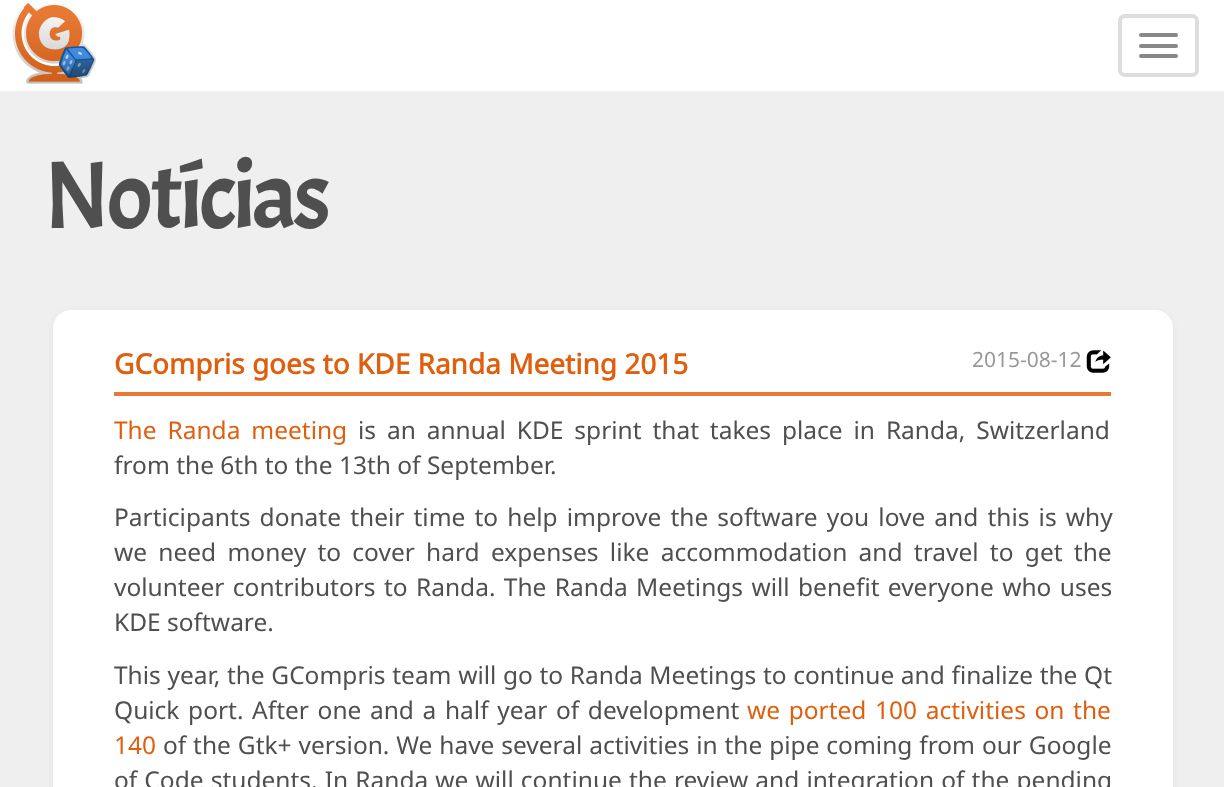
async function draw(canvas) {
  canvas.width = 1224;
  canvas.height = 787;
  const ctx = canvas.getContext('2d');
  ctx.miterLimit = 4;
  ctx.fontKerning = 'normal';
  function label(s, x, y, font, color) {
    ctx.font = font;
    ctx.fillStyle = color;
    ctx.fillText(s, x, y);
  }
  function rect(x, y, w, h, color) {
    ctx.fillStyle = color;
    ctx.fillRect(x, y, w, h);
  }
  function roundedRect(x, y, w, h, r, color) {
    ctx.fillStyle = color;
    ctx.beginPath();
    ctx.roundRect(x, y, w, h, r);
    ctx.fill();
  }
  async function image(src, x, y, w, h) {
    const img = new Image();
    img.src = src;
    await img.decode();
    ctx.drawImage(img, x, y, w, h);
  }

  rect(0, 0, 1224, 787, '#efefef');
  rect(0, 0, 1224, 91, '#fff');
  await image('assets/img1.png', 12, 3, 84, 81);
  ctx.beginPath();
  ctx.roundRect(1120, 16, 77, 59, 5);
  ctx.strokeStyle = '#ddd';
  ctx.lineWidth = 4;
  ctx.stroke();
  roundedRect(1139, 33, 39, 4, 2, '#888');
  roundedRect(1139, 44, 39, 4, 2, '#888');
  roundedRect(1139, 54, 39, 4, 2, '#888');
  ctx.letterSpacing = '-3.75px';
  label('Notícias', 44, 228, '96px Acme', '#4f4f4f');
  ctx.fillStyle = '#0000000d';
  ctx.filter = 'blur(3.5px)';
  ctx.beginPath();
  ctx.roundRect(53, 312, 1120, 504, 18);
  ctx.fill();
  ctx.filter = 'none';
  roundedRect(53, 310, 1120, 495, 18, '#fff');
  ctx.letterSpacing = '0px';
  label('GCompris goes to KDE Randa Meeting 2015', 114, 374, 'bold 28px Noto Sans', '#e05f0f');
  label('2015-08-12', 972, 367, '21px Noto Sans', '#999');
  await image('assets/img2.png', 1086, 350, 25, 23);
  rect(114, 392, 997, 4, '#e77935');
  ctx.wordSpacing = '4.5px';
  label('The Randa meeting', 114, 439, '24.5px Noto Sans', '#e05f0f');
  label('is an annual KDE sprint that takes place in Randa, Switzerland', 358, 439, '24.5px Noto Sans', '#4f4f4f');
  ctx.wordSpacing = '0px';
  label('from the 6th to the 13th of September.', 114, 474, '24.5px Noto Sans', '#4f4f4f');
  ctx.wordSpacing = '2.75px';
  label('Participants donate their time to help improve the software you love and this is why', 114, 526, '24.5px Noto Sans', '#4f4f4f');
  ctx.wordSpacing = '4.9px';
  label('we need money to cover hard expenses like accommodation and travel to get the', 114, 561, '24.5px Noto Sans', '#4f4f4f');
  ctx.wordSpacing = '2px';
  label('volunteer contributors to Randa. The Randa Meetings will benefit everyone who uses', 114, 596, '24.5px Noto Sans', '#4f4f4f');
  ctx.wordSpacing = '0px';
  label('KDE software.', 114, 631, '24.5px Noto Sans', '#4f4f4f');
  ctx.wordSpacing = '0.25px';
  label('This year, the GCompris team will go to Randa Meetings to continue and finalize the Qt', 114, 684, '24.5px Noto Sans', '#4f4f4f');
  ctx.wordSpacing = '2.25px';
  label('Quick port. After one and a half year of development', 114, 719, '24.5px Noto Sans', '#4f4f4f');
  label('we ported 100 activities on the', 747, 719, '24.5px Noto Sans', '#e05f0f');
  ctx.wordSpacing = '0px';
  label('140', 114, 754, '24.5px Noto Sans', '#e05f0f');
  ctx.wordSpacing = '0.5px';
  label('of the Gtk+ version. We have several activities in the pipe coming from our Google', 163, 754, '24.5px Noto Sans', '#4f4f4f');
  ctx.wordSpacing = '0.75px';
  label('of Code students. In Randa we will continue the review and integration of the pending', 114, 789, '24.5px Noto Sans', '#4f4f4f');
}

draw(document.querySelector('canvas'));
